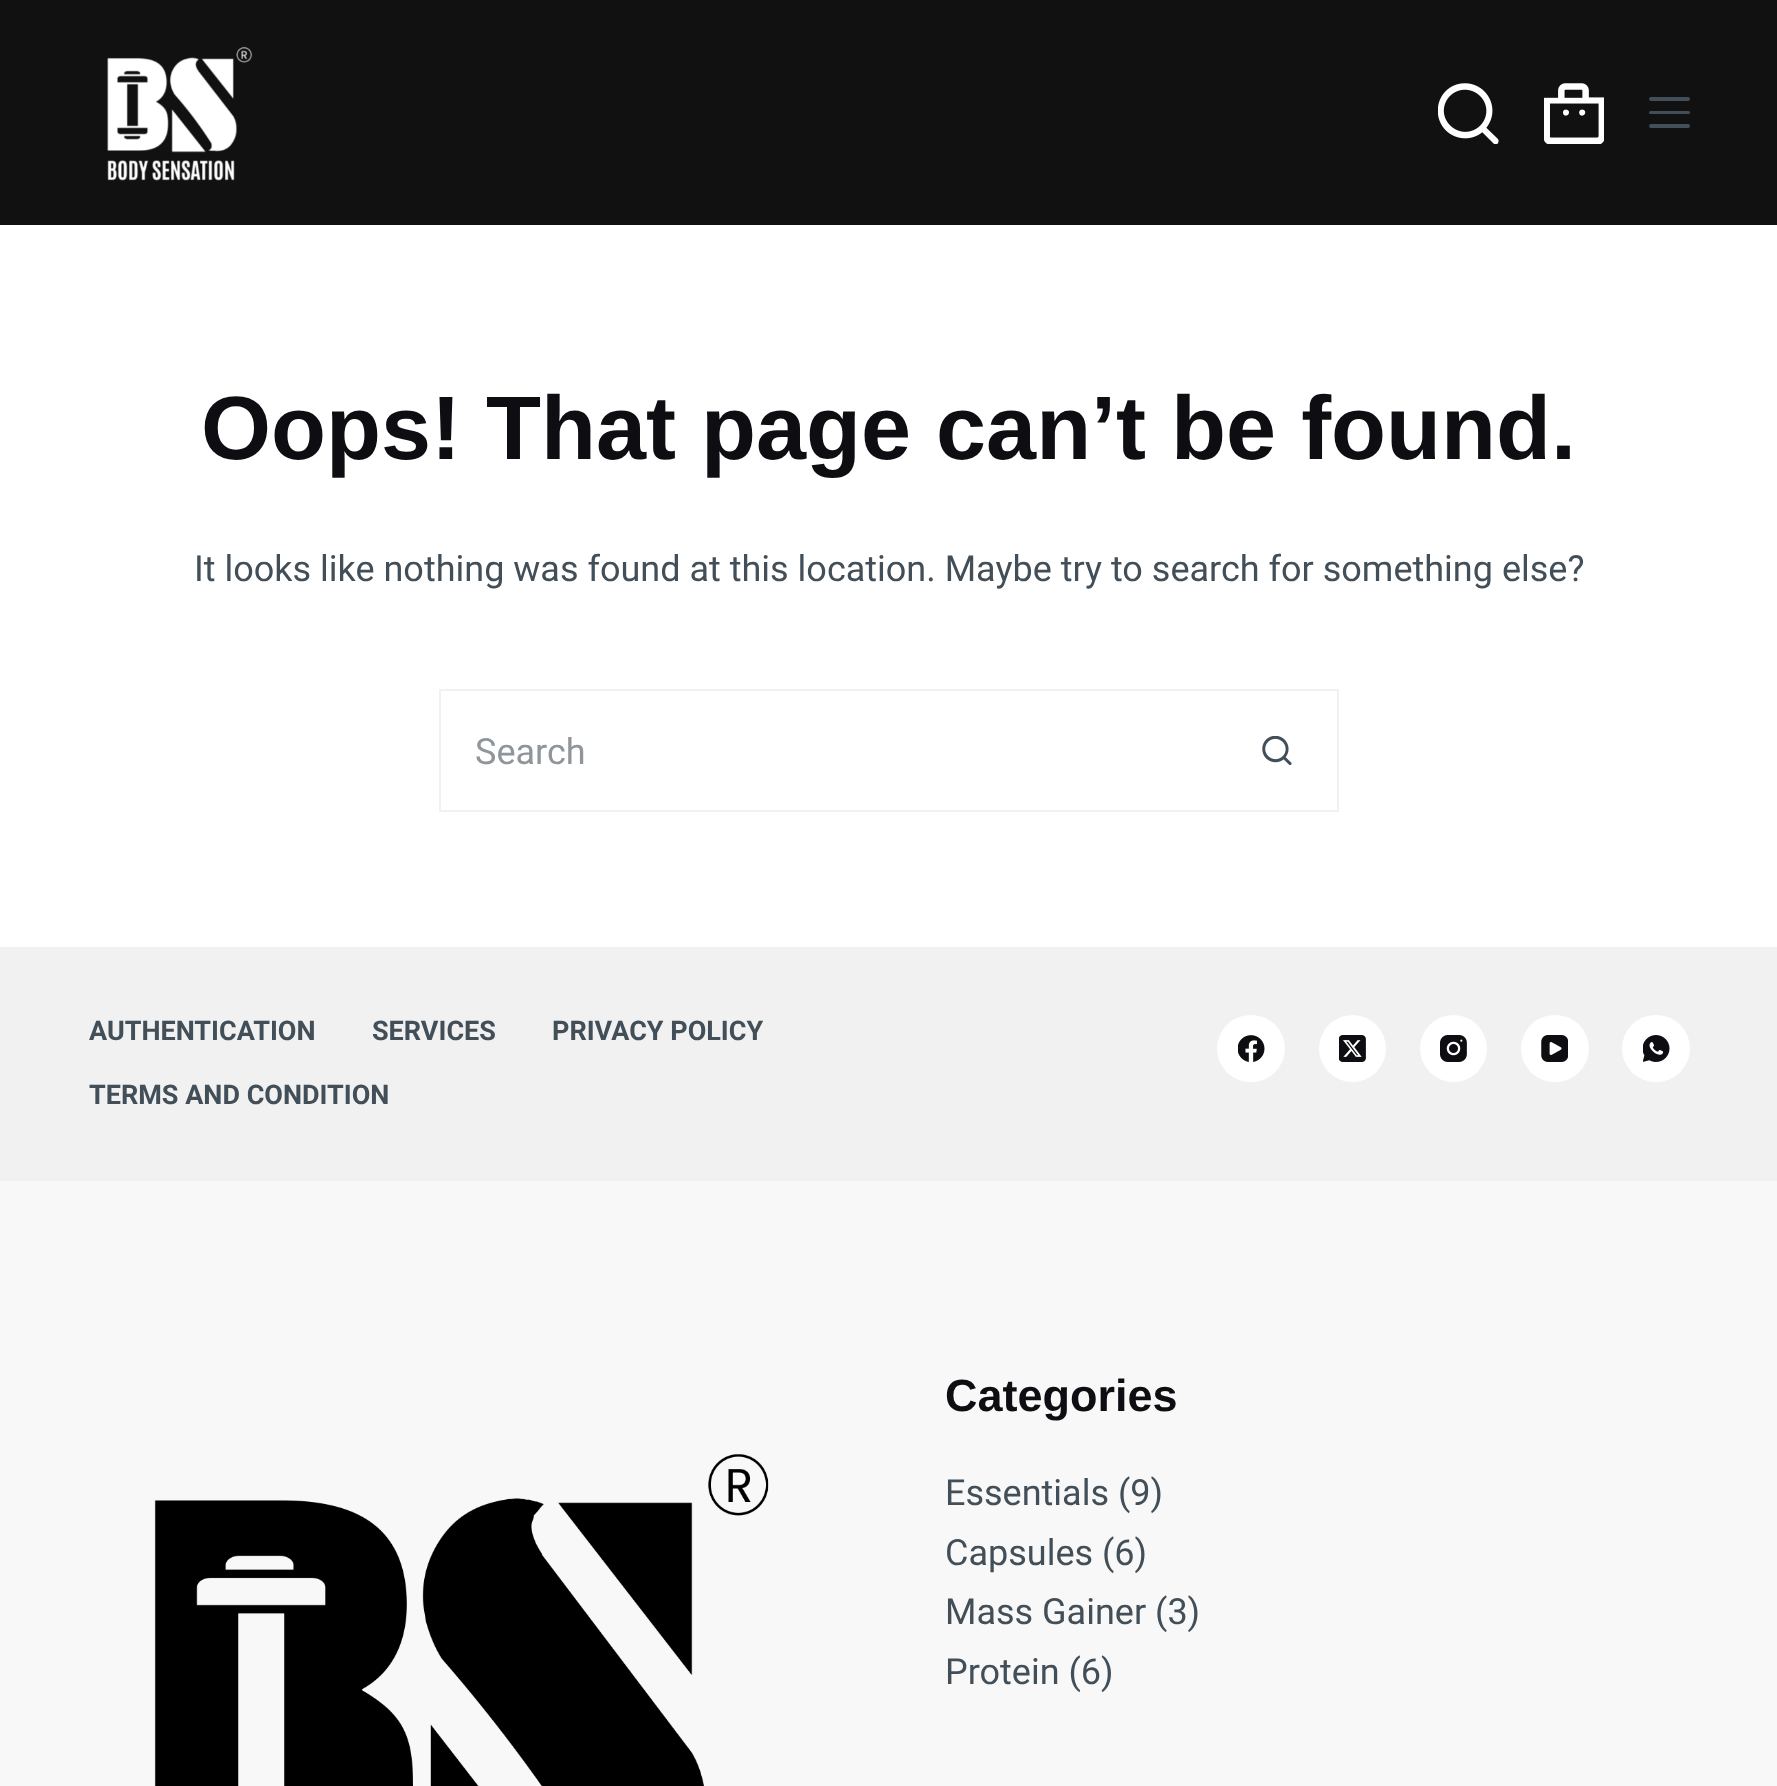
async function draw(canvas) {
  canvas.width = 1777;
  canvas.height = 1786;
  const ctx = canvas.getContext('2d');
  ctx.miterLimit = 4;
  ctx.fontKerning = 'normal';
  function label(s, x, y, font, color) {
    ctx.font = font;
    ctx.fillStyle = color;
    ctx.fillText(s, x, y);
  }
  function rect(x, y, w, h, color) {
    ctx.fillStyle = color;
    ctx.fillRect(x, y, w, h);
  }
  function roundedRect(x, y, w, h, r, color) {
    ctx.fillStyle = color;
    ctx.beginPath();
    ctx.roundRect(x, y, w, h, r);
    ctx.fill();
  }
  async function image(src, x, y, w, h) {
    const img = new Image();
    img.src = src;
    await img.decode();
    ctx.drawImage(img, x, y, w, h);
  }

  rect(0, 0, 1777, 1786, '#fff');
  rect(0, 0, 1777, 225, '#111');
  await image('assets/img1.png', 107, 46, 146, 135);
  await image('assets/img2.png', 1438, 83, 61, 61);
  await image('assets/img3.png', 1544, 83, 60, 61);
  roundedRect(1649, 97, 41, 4, 2, '#434f58');
  roundedRect(1649, 111, 41, 3, 1.5, '#434f58');
  roundedRect(1649, 124, 41, 4, 2, '#434f58');
  label('Oops! That page can’t be found.', 201, 459, 'bold 90px Liberation Sans', '#0e0d12');
  label('It looks like nothing was found at this location. Maybe try to search for something else?', 194, 581, '36px Roboto', '#434f58');
  rect(439, 689, 900, 2, '#f1f1f1');
  rect(439, 810, 776, 2, '#f1f1f1');
  rect(439, 689, 2, 123, '#f1f1f1');
  label('Search', 475, 764, '36px Roboto', '#8e959b');
  rect(1337, 689, 2, 123, '#f1f1f1');
  rect(1215, 810, 124, 2, '#f1f1f1');
  await image('assets/img4.png', 1262, 736, 30, 29);
  rect(0, 1181, 1777, 605, '#f8f8f8');
  rect(0, 947, 1777, 234, '#f1f1f1');
  label('AUTHENTICATION', 89, 1040, 'bold 27px Roboto', '#434f58');
  label('SERVICES', 372, 1040, 'bold 27px Roboto', '#434f58');
  label('PRIVACY POLICY', 552, 1040, 'bold 27px Roboto', '#434f58');
  label('TERMS AND CONDITION', 89, 1104, 'bold 27px Roboto', '#434f58');
  roundedRect(1217, 1015, 68, 67, 33.5, '#fff');
  await image('assets/img5.png', 1238, 1035, 27, 27);
  ctx.beginPath();
  ctx.arc(1352.5, 1048.5, 33.5, 0, 2 * Math.PI);
  ctx.fill();
  await image('assets/img6.png', 1339, 1035, 27, 27);
  ctx.beginPath();
  ctx.arc(1453.5, 1048.5, 33.5, 0, 2 * Math.PI);
  ctx.fill();
  await image('assets/img7.png', 1440, 1035, 27, 27);
  roundedRect(1521, 1015, 68, 67, 33.5, '#fff');
  await image('assets/img8.png', 1541, 1035, 27, 27);
  roundedRect(1622, 1015, 68, 67, 33.5, '#fff');
  await image('assets/img9.png', 1643, 1035, 27, 27);
  await image('assets/img10.png', 154, 1454, 615, 332);
  label('Categories', 945, 1411, 'bold 45px Liberation Sans', '#0e0d12');
  label('Essentials (9)', 945, 1505, '36px Roboto', '#434f58');
  label('Capsules (6)', 945, 1565, '36px Roboto', '#434f58');
  label('Mass Gainer (3)', 945, 1624, '36px Roboto', '#434f58');
  label('Protein (6)', 945, 1684, '36px Roboto', '#434f58');
}

draw(document.querySelector('canvas'));
